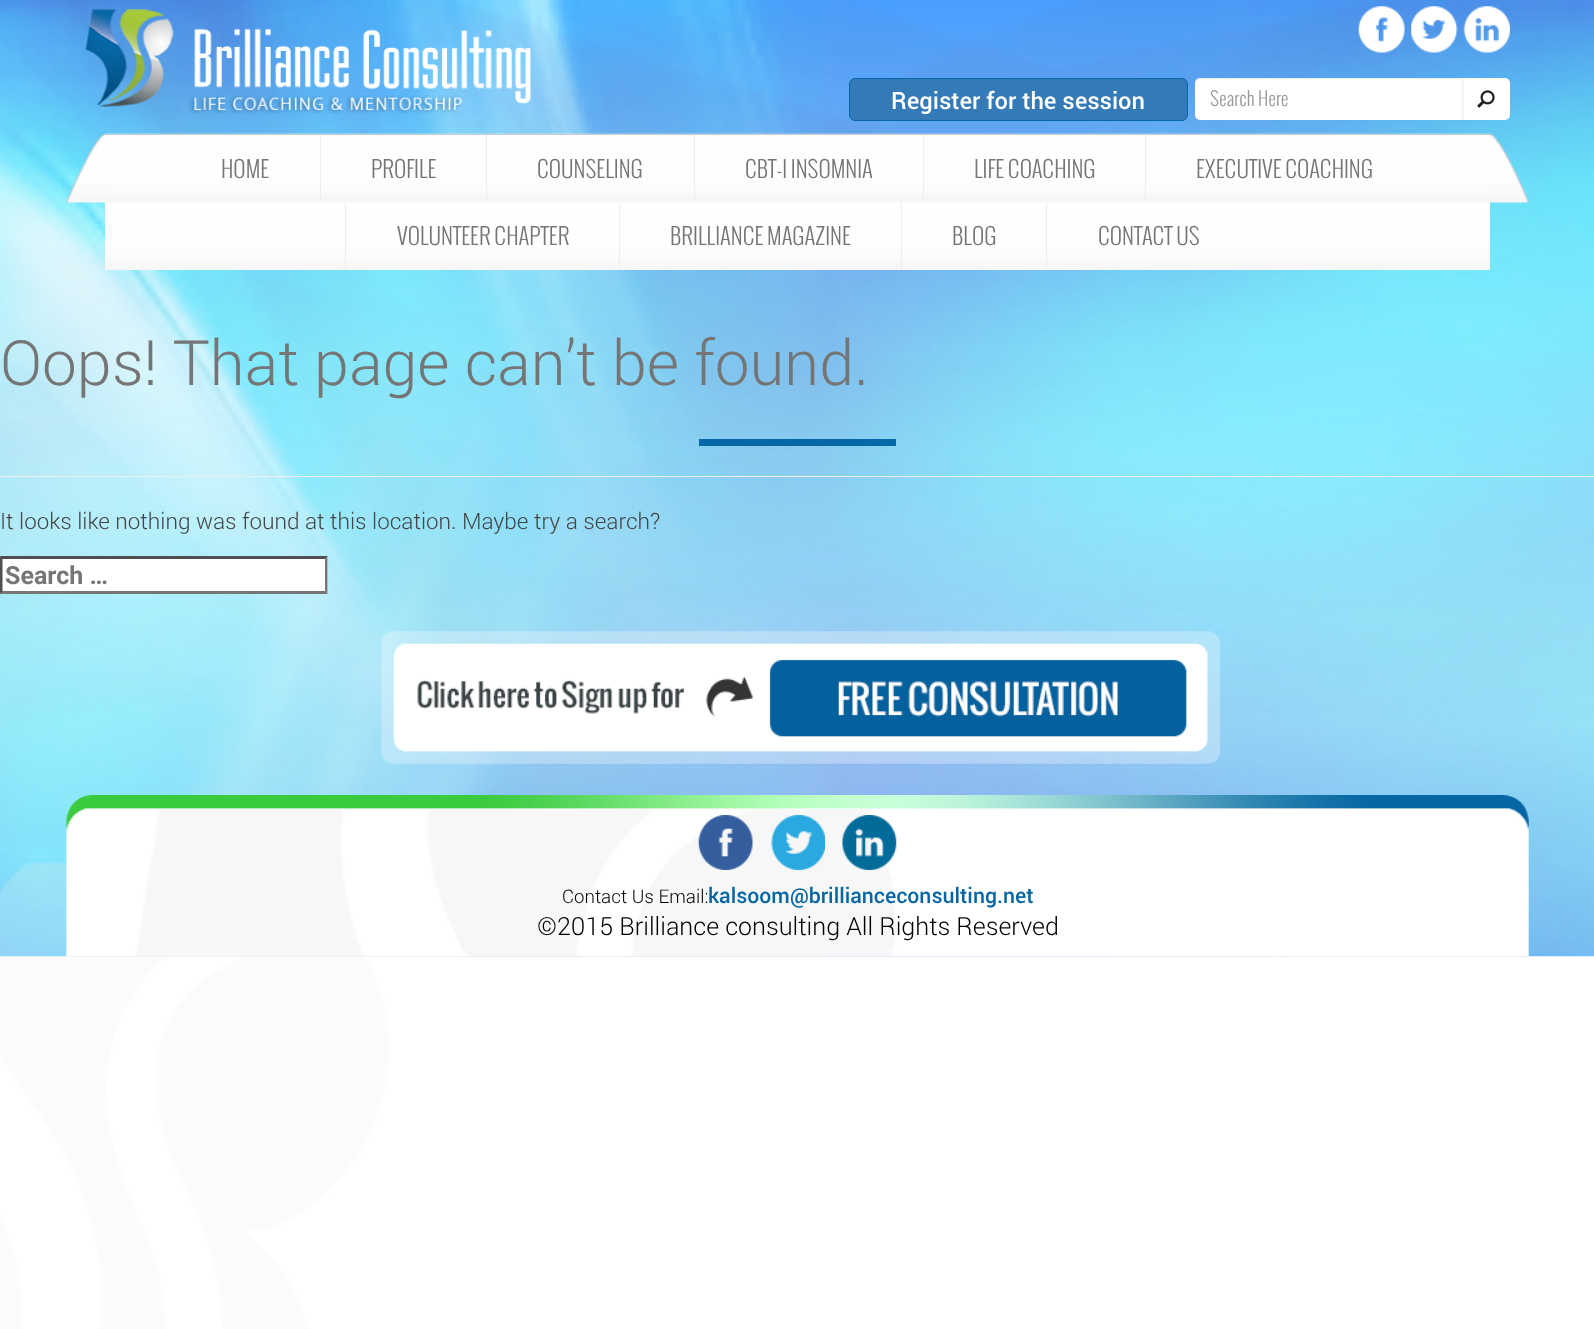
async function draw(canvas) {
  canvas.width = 1594;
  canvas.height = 1329;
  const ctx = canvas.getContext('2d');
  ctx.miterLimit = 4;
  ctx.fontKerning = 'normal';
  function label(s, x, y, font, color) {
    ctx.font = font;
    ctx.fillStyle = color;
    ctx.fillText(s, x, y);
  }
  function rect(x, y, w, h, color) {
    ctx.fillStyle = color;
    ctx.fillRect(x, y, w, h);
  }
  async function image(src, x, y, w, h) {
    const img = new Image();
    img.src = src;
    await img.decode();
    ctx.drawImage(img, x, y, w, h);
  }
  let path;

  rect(0, 0, 1594, 1329, '#fff');
  await image('assets/img1.png', 0, 0, 1594, 1329);
  await image('assets/img2.png', 85, 9, 447, 105);
  await image('assets/img3.png', 1358, 6, 47, 47);
  await image('assets/img4.png', 1411, 6, 47, 47);
  await image('assets/img5.png', 1463, 6, 47, 47);
  ctx.fillStyle = '#337ab7';
  ctx.beginPath();
  ctx.roundRect(849.5, 78.5, 338, 42, 5.5);
  ctx.fill();
  ctx.strokeStyle = '#0668a7';
  ctx.stroke();
  label('Register for the session', 891, 109, '500 23.75px Roboto', '#fff');
  ctx.beginPath();
  ctx.roundRect(1463, 78, 47, 42, [0, 5, 5, 0]);
  ctx.fill();
  ctx.beginPath();
  ctx.roundRect(1195, 78, 269, 42, [5, 0, 0, 5]);
  ctx.fill();
  ctx.fillStyle = '#00000012';
  path = new Path2D('M1200 79H1462V120H1463V78H1200C1197 78 1195 81 1195 84C1195 81 1197 79 1200 79Z');
  ctx.fill(path);
  rect(1463, 78, 1, 42, '#f6f6f6');
  label('Search Here', 1210, 106, '300 18.75px Oswald', '#999');
  await image('assets/img6.png', 1477, 90, 18, 18);
  await image('assets/img7.png', 66, 133, 39, 70);
  await image('assets/img8.png', 105, 133, 1385, 137);
  rect(105, 134, 1385, 1, '#ccc');
  label('HOME', 221, 178, '300 22.5px Oswald', '#757575');
  rect(320, 135, 1, 68, '#eee');
  label('PROFILE', 371, 178, '300 22.5px Oswald', '#757575');
  rect(486, 135, 1, 68, '#eee');
  label('COUNSELING', 537, 178, '300 22.5px Oswald', '#757575');
  rect(694, 135, 1, 68, '#eee');
  label('CBT-I INSOMNIA', 745, 178, '300 22.5px Oswald', '#757575');
  rect(923, 135, 1, 68, '#eee');
  label('LIFE COACHING', 974, 178, '300 22.5px Oswald', '#757575');
  rect(1145, 135, 1, 68, '#eee');
  label('EXECUTIVE COACHING', 1196, 178, '300 22.5px Oswald', '#757575');
  rect(345, 203, 1, 67, '#eee');
  label('VOLUNTEER CHAPTER', 397, 245, '300 22.5px Oswald', '#757575');
  rect(619, 203, 1, 67, '#eee');
  label('BRILLIANCE MAGAZINE', 670, 245, '300 22.5px Oswald', '#757575');
  rect(901, 203, 1, 67, '#eee');
  label('BLOG', 952, 245, '300 22.5px Oswald', '#757575');
  rect(1046, 203, 1, 67, '#eee');
  label('CONTACT US', 1098, 245, '300 22.5px Oswald', '#757575');
  await image('assets/img9.png', 1490, 133, 39, 70);
  rect(0, 476, 1594, 1, '#eee');
  label('Oops! That page can’t be found.', 0, 385, '300 62.5px Roboto', '#757575');
  rect(699, 439, 197, 7, '#0668a7');
  label('It looks like nothing was found at this location. Maybe try a search?', 0, 529, '300 22.5px Roboto', '#444');
  rect(0, 556, 328, 38, '#fff');
  ctx.fillStyle = '#4f4f4f';
  path = new Path2D('M0 556H328L325 559H2Z');
  ctx.fill(path);
  ctx.fillStyle = '#767676';
  path = new Path2D('M327.5 556V594L325 591V559Z');
  ctx.fill(path);
  path = new Path2D('M328 594H0L2 591H325Z');
  ctx.fill(path);
  ctx.fillStyle = '#4f4f4f';
  path = new Path2D('M0 594V556L2.5 559V591Z');
  ctx.fill(path);
  label('Search …', 5, 584, 'bold 25px Roboto', '#757575');
  await image('assets/img10.png', 381, 631, 839, 133);
  await image('assets/img11.png', 66, 795, 1463, 162);
  await image('assets/img12.png', 698, 815, 55, 55);
  await image('assets/img13.png', 771, 815, 54, 55);
  await image('assets/img14.png', 842, 815, 55, 55);
  label('Contact Us Email:', 562, 903, '300 18.75px Roboto', '#000');
  label('kalsoom@brillianceconsulting.net', 708, 903, '500 21.25px Roboto', '#0666a3');
  label('©2015 Brilliance consulting All Rights Reserved', 537, 935, '300 25px Roboto', '#000');
}

draw(document.querySelector('canvas'));
